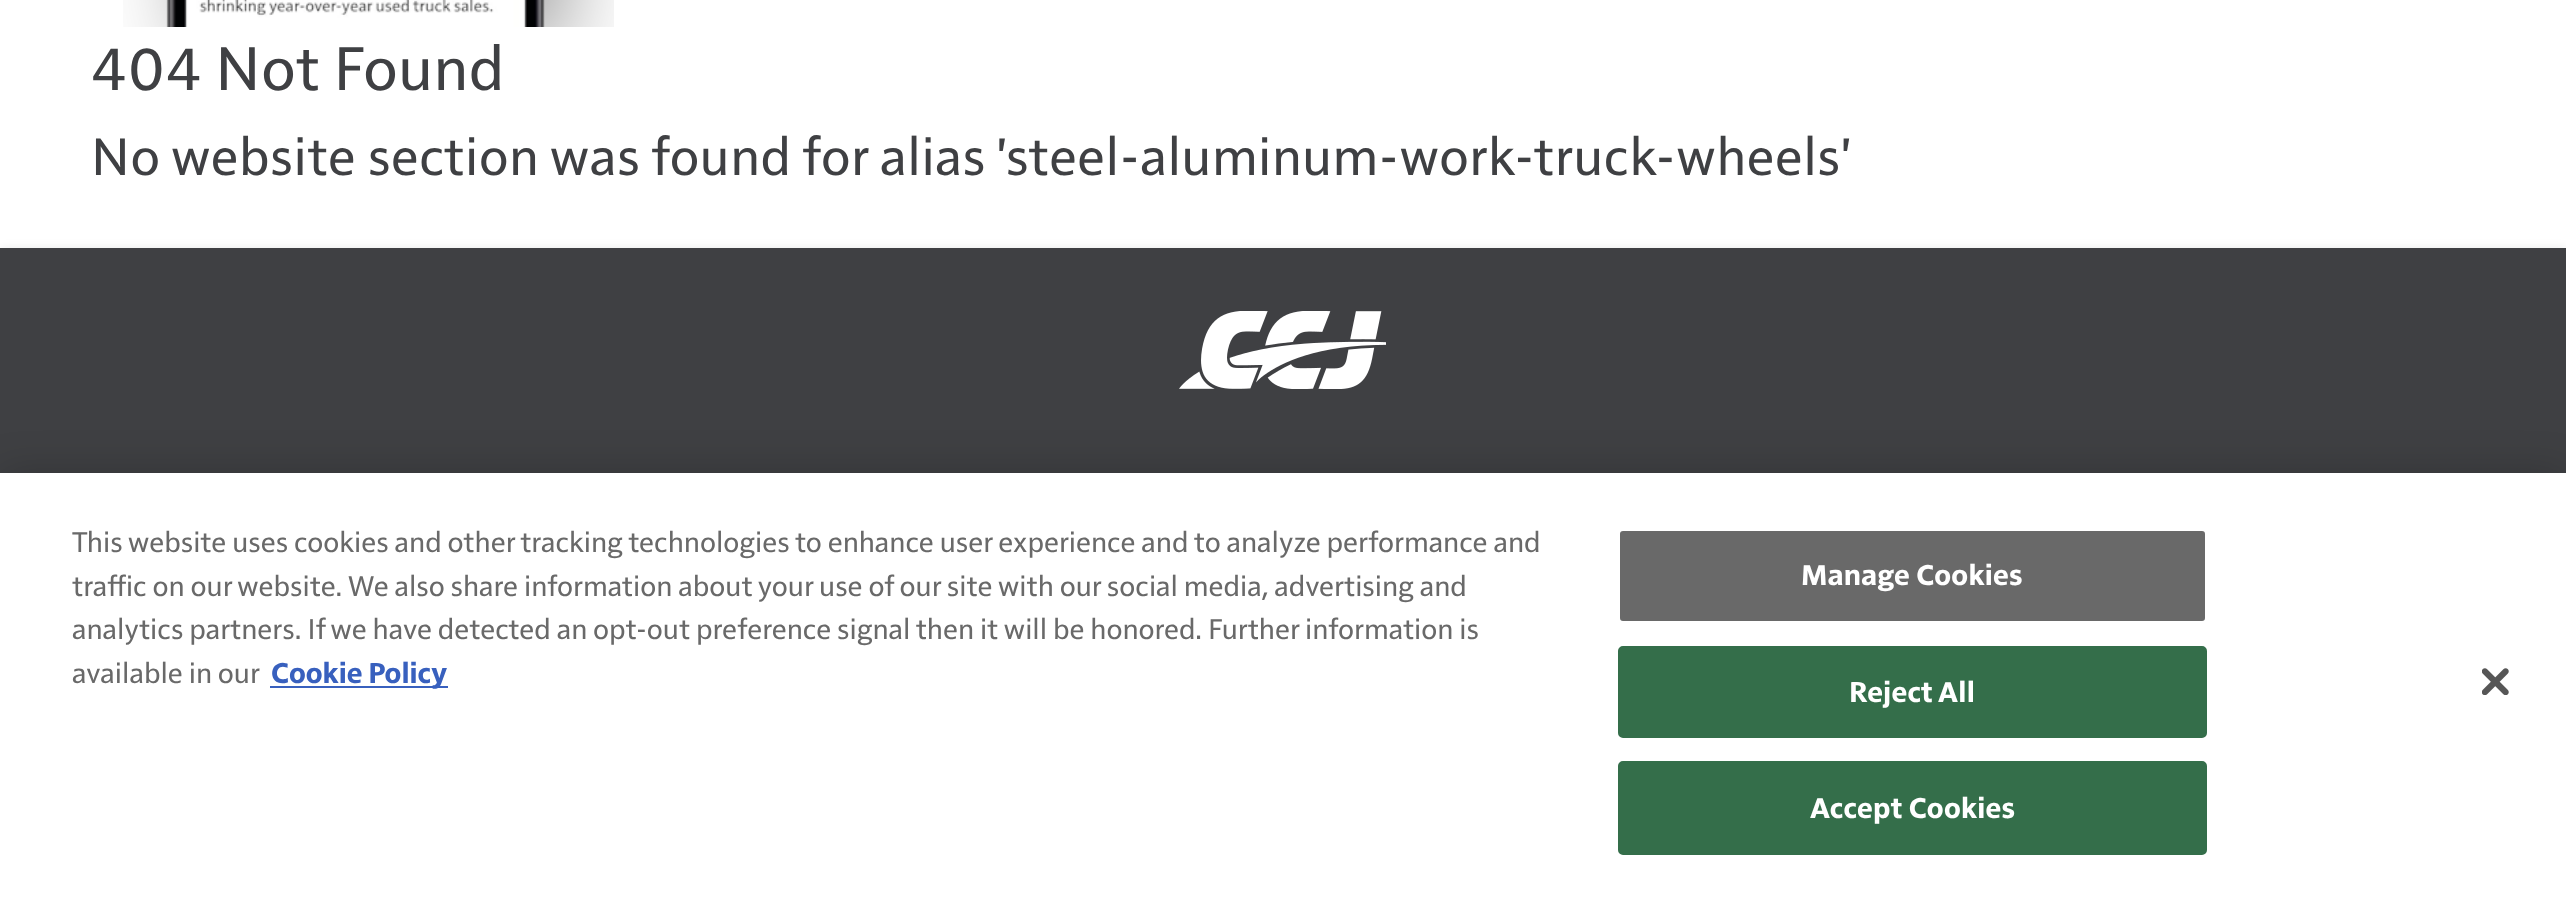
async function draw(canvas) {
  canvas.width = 2566;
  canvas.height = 898;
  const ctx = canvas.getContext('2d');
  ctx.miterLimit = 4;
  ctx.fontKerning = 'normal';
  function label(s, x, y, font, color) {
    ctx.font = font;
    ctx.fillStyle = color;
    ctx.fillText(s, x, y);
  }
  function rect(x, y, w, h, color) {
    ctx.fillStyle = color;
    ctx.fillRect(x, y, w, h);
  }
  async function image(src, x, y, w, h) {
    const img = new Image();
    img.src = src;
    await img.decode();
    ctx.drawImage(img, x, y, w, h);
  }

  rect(0, 0, 2566, 898, '#fff');
  await image('assets/img1.png', 123, 0, 491, 27);
  ctx.letterSpacing = '0.55px';
  label('404 Not Found', 91, 90, '63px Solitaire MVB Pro', '#3f4043');
  label('No website section was found for alias \'steel-aluminum-work-truck-wheels\'', 91, 175, '54px Solitaire MVB Pro', '#3f4043');
  ctx.fillStyle = '#0000001f';
  ctx.filter = 'blur(5.5px)';
  ctx.beginPath();
  ctx.rect(0, 250, 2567, 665);
  ctx.fill();
  ctx.filter = 'none';
  rect(0, 248, 2566, 225, '#3f4043');
  await image('assets/img2.png', 1179, 311, 207, 78);
  ctx.fillStyle = '#00000033';
  ctx.filter = 'blur(20px)';
  ctx.beginPath();
  ctx.rect(0, 473, 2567, 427);
  ctx.fill();
  ctx.filter = 'none';
  rect(0, 473, 2566, 425, '#fff');
  ctx.letterSpacing = '0px';
  label('This website uses cookies and other tracking technologies to enhance user experience and to analyze performance and', 72, 552, '29.27px Solitaire MVB Pro', '#696969');
  label('traffic on our website. We also share information about your use of our site with our social media, advertising and', 72, 596, '29.27px Solitaire MVB Pro', '#696969');
  label('analytics partners. If we have detected an opt-out preference signal then it will be honored. Further information is', 72, 639, '29.27px Solitaire MVB Pro', '#696969');
  label('available in our', 72, 683, '29.27px Solitaire MVB Pro', '#696969');
  rect(270, 686, 178, 2, '#3860be');
  label('Cookie Policy', 271, 683, 'bold 29.27px Solitaire MVB Pro', '#3860be');
  ctx.fillStyle = '#696969';
  ctx.beginPath();
  ctx.roundRect(1619, 530, 587, 92, 4);
  ctx.fill();
  ctx.strokeStyle = '#fff';
  ctx.lineWidth = 2;
  ctx.stroke();
  ctx.letterSpacing = '0.25px';
  label('Manage Cookies', 1801, 585, 'bold 29.27px Solitaire MVB Pro', '#fff');
  ctx.fillStyle = '#346e4a';
  ctx.beginPath();
  ctx.roundRect(1619, 647, 587, 90, 4);
  ctx.fill();
  ctx.strokeStyle = '#346e4a';
  ctx.stroke();
  label('Reject All', 1849, 702, 'bold 29.27px Solitaire MVB Pro', '#fff');
  ctx.fillStyle = '#346e4a';
  ctx.beginPath();
  ctx.roundRect(1619, 762, 587, 92, 4);
  ctx.fill();
  ctx.stroke();
  label('Accept Cookies', 1810, 818, 'bold 29.27px Solitaire MVB Pro', '#fff');
  await image('assets/img3.png', 2482, 668, 27, 27);
}

draw(document.querySelector('canvas'));
